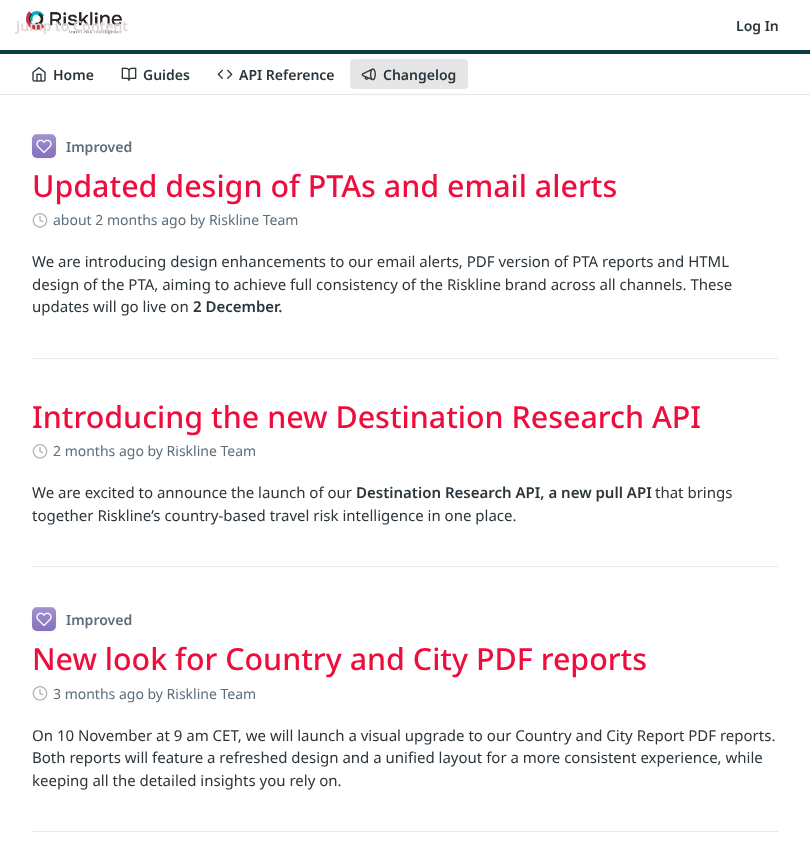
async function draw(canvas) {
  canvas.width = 810;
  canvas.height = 864;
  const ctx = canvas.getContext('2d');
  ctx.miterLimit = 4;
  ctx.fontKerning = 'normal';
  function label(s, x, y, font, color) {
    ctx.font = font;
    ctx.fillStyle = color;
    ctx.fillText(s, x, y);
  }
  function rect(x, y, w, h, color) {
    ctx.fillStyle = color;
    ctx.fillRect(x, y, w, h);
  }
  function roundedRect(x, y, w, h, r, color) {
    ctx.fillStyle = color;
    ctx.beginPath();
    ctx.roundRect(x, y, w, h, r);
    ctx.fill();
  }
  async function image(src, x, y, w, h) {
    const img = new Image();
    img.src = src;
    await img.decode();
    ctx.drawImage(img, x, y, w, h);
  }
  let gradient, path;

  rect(0, 0, 810, 864, '#fff');
  rect(0, 94, 810, 1, '#e6e6e6');
  rect(0, 50, 810, 4, '#0e3a43');
  await image('assets/img1.png', 26, 11, 96, 24);
  label('Jump to Content', 16, 31, '600 14px Noto Sans', '#dfd5d6');
  label('Log In', 736, 31, '600 14px Noto Sans', '#2b353b');
  await image('assets/img2.png', 32, 67, 14, 15);
  label('Home', 53, 80, '600 14px Noto Sans', '#2b353b');
  await image('assets/img3.png', 121, 67, 16, 14);
  label('Guides', 143, 80, '600 14px Noto Sans', '#2b353b');
  await image('assets/img4.png', 217, 69, 16, 10);
  label('API Reference', 239, 80, '600 14px Noto Sans', '#2b353b');
  roundedRect(350, 59, 118, 30, 4, '#e6e6e6');
  await image('assets/img5.png', 361, 68, 15, 13);
  label('Changelog', 383, 80, '600 14px Noto Sans', '#2b353b');
  rect(32, 358, 746, 1, '#e5e9eb');
  ctx.fillStyle = '#0000000d';
  ctx.filter = 'blur(1px)';
  ctx.beginPath();
  ctx.roundRect(32, 135, 24, 24, 5);
  ctx.fill();
  ctx.filter = 'none';
  gradient = ctx.createLinearGradient(44, 134, 44, 158);
  gradient.addColorStop(0, '#a293ce');
  gradient.addColorStop(1, '#8470be');
  ctx.fillStyle = gradient;
  ctx.beginPath();
  ctx.roundRect(32, 134, 24, 24, 5);
  ctx.fill();
  ctx.fillStyle = '#ffffff33';
  path = new Path2D('M37 135C39.5 135 50 134.5 53 135.5C54.5 136 55.5 137 56 139C56 132.5 48 134 44 134C38.5 134 32 132.5 32 140C32 137 34 135 37 135ZM56 147L55.5 154.5C56.5 152.5 56 149.5 56 147ZM32 154.5V152Z');
  ctx.fill(path, 'evenodd');
  await image('assets/img6.png', 36, 139, 16, 14);
  label('Improved', 66, 152, '600 14px Noto Sans', '#5d6d79');
  label('Updated design of PTAs and email alerts', 32, 197, '500 30.4px Noto Sans', '#ee0e3e');
  await image('assets/img7.png', 32, 213, 16, 15);
  label('about 2 months ago by Riskline Team', 53, 225, '14px Noto Sans', '#5d6d79');
  label('We are introducing design enhancements to our email alerts, PDF version of PTA reports and HTML', 32, 267, '15px Noto Sans', '#2b353b');
  label('design of the PTA, aiming to achieve full consistency of the Riskline brand across all channels. These', 32, 290, '15px Noto Sans', '#2b353b');
  label('updates will go live on', 32, 312, '15px Noto Sans', '#2b353b');
  label('2 December.', 193, 312, '600 15px Noto Sans', '#2b353b');
  rect(32, 566, 746, 1, '#e5e9eb');
  label('Introducing the new Destination Research API', 32, 428, '500 30.4px Noto Sans', '#ee0e3e');
  await image('assets/img7.png', 32, 444, 16, 15);
  label('2 months ago by Riskline Team', 53, 456, '14px Noto Sans', '#5d6d79');
  label('We are excited to announce the launch of our', 32, 498, '15px Noto Sans', '#2b353b');
  label('Destination Research API, a new pull API', 356, 498, '600 15px Noto Sans', '#2b353b');
  label('that brings', 655, 498, '15px Noto Sans', '#2b353b');
  label('together Riskline’s country-based travel risk intelligence in one place.', 32, 521, '15px Noto Sans', '#2b353b');
  rect(32, 831, 746, 1, '#e5e9eb');
  ctx.fillStyle = '#0000000d';
  ctx.filter = 'blur(1px)';
  ctx.beginPath();
  ctx.roundRect(32, 608, 24, 24, 5);
  ctx.fill();
  ctx.filter = 'none';
  gradient = ctx.createLinearGradient(44, 607, 44, 631);
  gradient.addColorStop(0, '#a293ce');
  gradient.addColorStop(1, '#8470be');
  ctx.fillStyle = gradient;
  ctx.beginPath();
  ctx.roundRect(32, 607, 24, 24, 5);
  ctx.fill();
  ctx.fillStyle = '#ffffff33';
  path = new Path2D('M37 608C39.5 608 50 607.5 53 608.5C54.5 609 55.5 610 56 612C56 605.5 48 607 44 607C38.5 607 32 605.5 32 613C32 610 34 608 37 608ZM56 620L55.5 627.5C56.5 625.5 56 622.5 56 620ZM32 627.5V625Z');
  ctx.fill(path, 'evenodd');
  await image('assets/img6.png', 36, 612, 16, 14);
  label('Improved', 66, 625, '600 14px Noto Sans', '#5d6d79');
  label('New look for Country and City PDF reports', 32, 670, '500 30.4px Noto Sans', '#ee0e3e');
  await image('assets/img7.png', 32, 686, 16, 15);
  label('3 months ago by Riskline Team', 53, 699, '14px Noto Sans', '#5d6d79');
  label('On 10 November at 9 am CET, we will launch a visual upgrade to our Country and City Report PDF reports.', 32, 741, '15px Noto Sans', '#2b353b');
  label('Both reports will feature a refreshed design and a unified layout for a more consistent experience, while', 32, 763, '15px Noto Sans', '#2b353b');
  label('keeping all the detailed insights you rely on.', 32, 786, '15px Noto Sans', '#2b353b');
}

draw(document.querySelector('canvas'));
